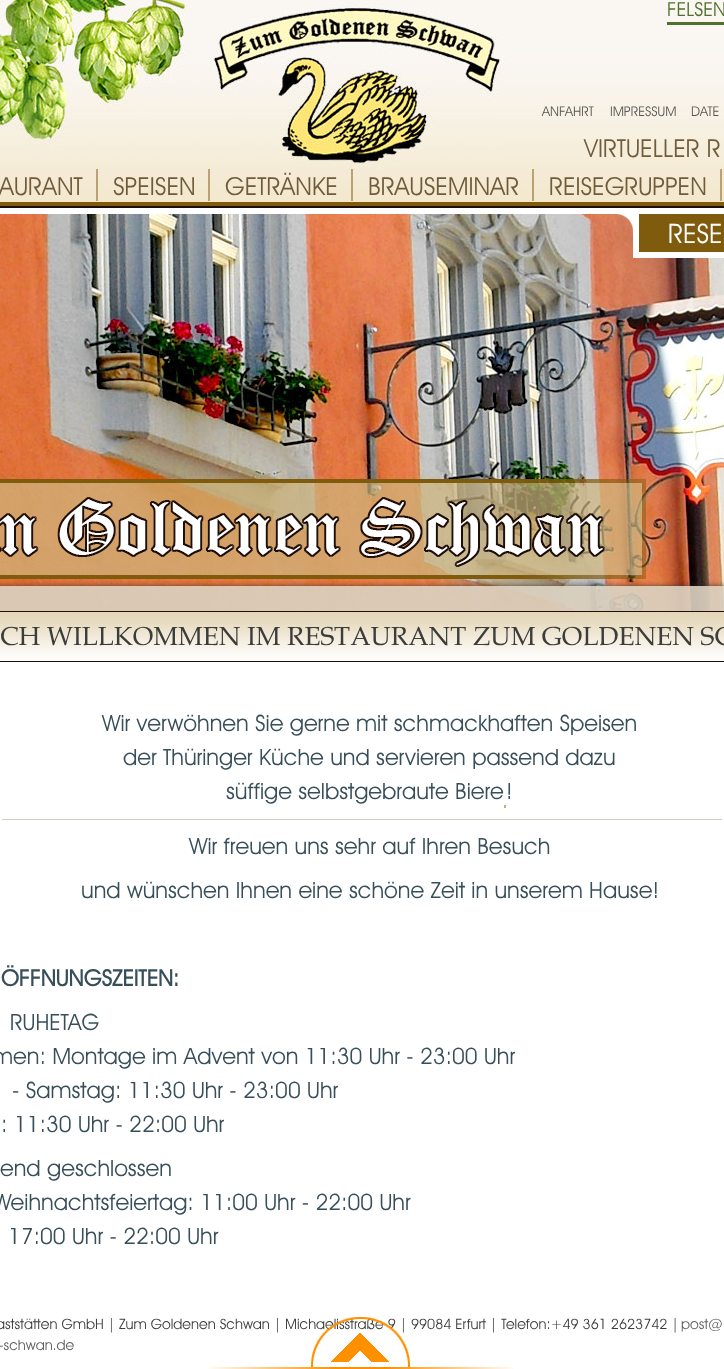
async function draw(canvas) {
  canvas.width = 724;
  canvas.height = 1369;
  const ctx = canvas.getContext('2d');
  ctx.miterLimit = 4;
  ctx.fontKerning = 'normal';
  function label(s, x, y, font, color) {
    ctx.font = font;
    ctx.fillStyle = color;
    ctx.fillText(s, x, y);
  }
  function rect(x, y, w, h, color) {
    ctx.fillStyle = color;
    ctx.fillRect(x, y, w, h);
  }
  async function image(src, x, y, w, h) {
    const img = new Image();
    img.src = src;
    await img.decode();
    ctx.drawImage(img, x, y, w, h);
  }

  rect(0, 0, 724, 1369, '#fff');
  await image('assets/img1.png', 0, 0, 724, 208);
  await image('assets/img2.png', 0, 0, 505, 169);
  rect(667, 22, 57, 3, '#51702e');
  label('FELSEN', 667, 16, '19.5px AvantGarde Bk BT', '#51702e');
  label('ANFAHRT', 542, 116, '13.5px AvantGarde Bk BT', '#575756');
  label('IMPRESSUM', 610, 116, '13.5px AvantGarde Bk BT', '#575756');
  label('DATE', 691, 116, '13.5px AvantGarde Bk BT', '#575756');
  label('VIRTUELLER R', 584, 157, '25px AvantGarde Bk BT', '#705b3a');
  rect(0, 202, 724, 4, '#7e5b0d');
  await image('assets/img3.png', 96, 169, 2, 32);
  label('AURANT', -1, 195, '25px AvantGarde Bk BT', '#705b3a');
  await image('assets/img3.png', 208, 169, 2, 32);
  label('SPEISEN', 113, 195, '25px AvantGarde Bk BT', '#705b3a');
  await image('assets/img3.png', 351, 169, 2, 32);
  label('GETRÄNKE', 225, 195, '25px AvantGarde Bk BT', '#705b3a');
  await image('assets/img3.png', 532, 169, 2, 32);
  label('BRAUSEMINAR', 368, 195, '25px AvantGarde Bk BT', '#705b3a');
  await image('assets/img3.png', 720, 169, 2, 32);
  label('REISEGRUPPEN', 549, 195, '25px AvantGarde Bk BT', '#705b3a');
  await image('assets/img4.png', 0, 214, 724, 397);
  await image('assets/img5.png', 618, 214, 106, 44);
  label('RESE', 668, 243, '27px AvantGarde Bk BT', '#fff');
  rect(0, 586, 724, 25, '#d2d2d2b3');
  ctx.save();
  ctx.beginPath();
  ctx.rect(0, 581, 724, 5);
  ctx.clip();
  ctx.fillStyle = '#292929';
  ctx.filter = 'blur(3px)';
  ctx.beginPath();
  ctx.rect(-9, 587, 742, 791);
  ctx.fill();
  ctx.filter = 'none';
  ctx.restore();
  await image('assets/img6.png', 0, 479, 646, 100);
  rect(0, 586, 724, 25, '#ddd0bab3');
  await image('assets/img7.png', 0, 612, 724, 49);
  rect(0, 611, 724, 1, '#200e09');
  rect(0, 661, 724, 1, '#200e09');
  label('CH WILLKOMMEN IM RESTAURANT ZUM GOLDENEN SC', 0, 645, '26.15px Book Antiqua', '#3c3c3b');
  label('Wir verwöhnen Sie gerne mit schmackhaften Speisen', 102, 731, '22.65px AvantGarde Bk BT', '#384f5a');
  label('der Thüringer Küche und servieren passend dazu', 123, 765, '22.65px AvantGarde Bk BT', '#384f5a');
  label('süffige selbstgebraute Biere', 226, 799, '22.65px AvantGarde Bk BT', '#384f5a');
  label('!', 506, 799, '22.65px AvantGarde Bk BT', '#384f5a');
  rect(504, 805, 2, 3, '#bead86');
  rect(2, 819, 720, 1, '#d4cdc1');
  label('Wir freuen uns sehr auf Ihren Besuch', 189, 854, '22.65px AvantGarde Bk BT', '#384f5a');
  label('und wünschen Ihnen eine schöne Zeit in unserem Hause!', 81, 898, '22.65px AvantGarde Bk BT', '#384f5a');
  label('ÖFFNUNGSZEITEN:', 1, 986, 'bold 22.65px AvantGarde Bk BT', '#384f5a');
  label('RUHETAG', 10, 1030, '22.65px AvantGarde Bk BT', '#384f5a');
  label('men: Montage im Advent von 11:30 Uhr - 23:00 Uhr', -8, 1064, '22.65px AvantGarde Bk BT', '#384f5a');
  label('- Samstag: 11:30 Uhr - 23:00 Uhr', 12, 1098, '22.65px AvantGarde Bk BT', '#384f5a');
  label(': 11:30 Uhr - 22:00 Uhr', 1, 1132, '22.65px AvantGarde Bk BT', '#384f5a');
  label('end geschlossen', 0, 1176, '22.65px AvantGarde Bk BT', '#384f5a');
  label('Weihnachtsfeiertag: 11:00 Uhr - 22:00 Uhr', -7, 1210, '22.65px AvantGarde Bk BT', '#384f5a');
  label('17:00 Uhr - 22:00 Uhr', 8, 1244, '22.65px AvantGarde Bk BT', '#384f5a');
  label('aststätten GmbH | Zum Goldenen Schwan | Michaelisstraße 9 | 99084 Erfurt | Telefon:+49 361 2623742 |', -4, 1329, '14.3px AvantGarde Bk BT', '#3c3c3b');
  label('post@', 681, 1329, '14.3px AvantGarde Bk BT', '#626160');
  label('-schwan.de', -1, 1350, '14.3px AvantGarde Bk BT', '#626160');
  await image('assets/img8.png', 208, 1317, 306, 52);
}

draw(document.querySelector('canvas'));
